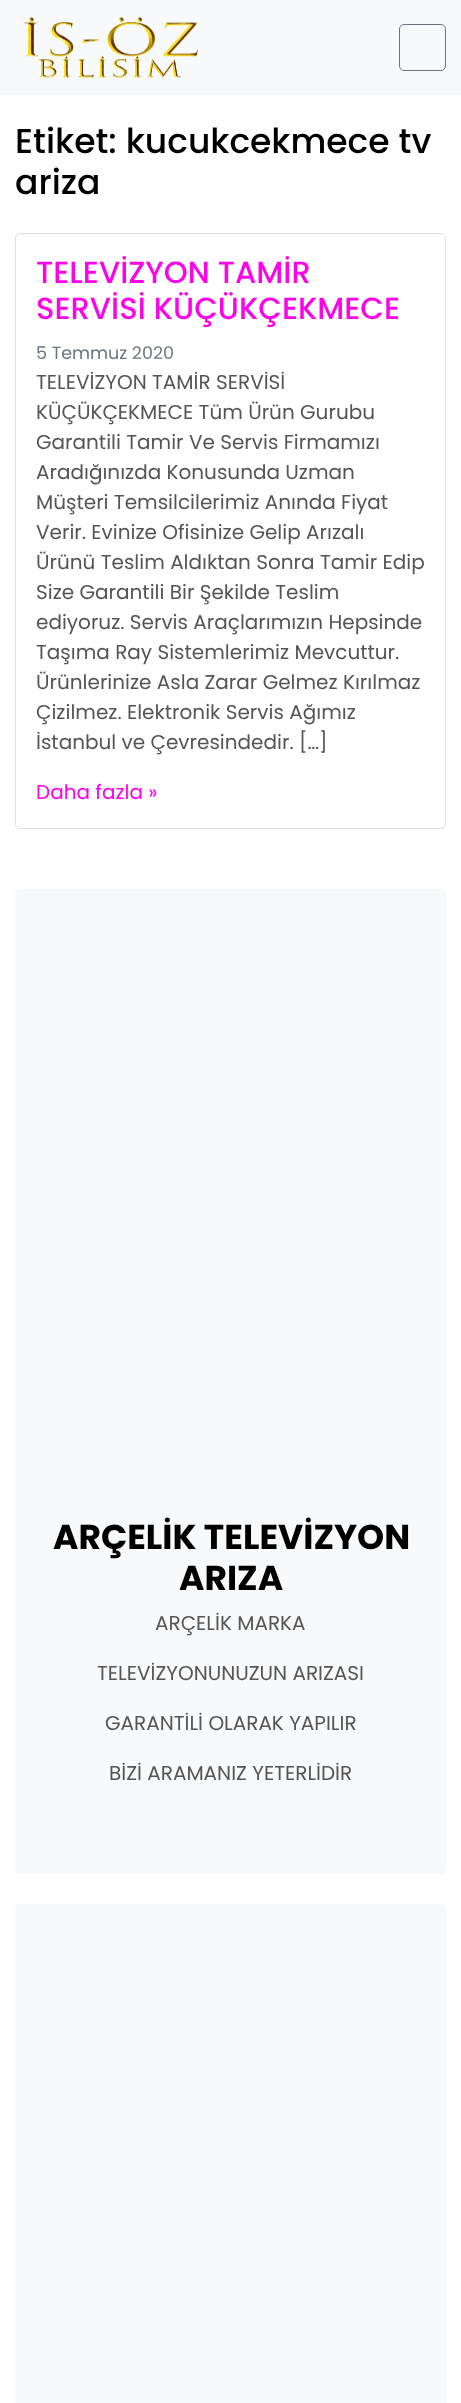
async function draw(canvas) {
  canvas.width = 461;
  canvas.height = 2403;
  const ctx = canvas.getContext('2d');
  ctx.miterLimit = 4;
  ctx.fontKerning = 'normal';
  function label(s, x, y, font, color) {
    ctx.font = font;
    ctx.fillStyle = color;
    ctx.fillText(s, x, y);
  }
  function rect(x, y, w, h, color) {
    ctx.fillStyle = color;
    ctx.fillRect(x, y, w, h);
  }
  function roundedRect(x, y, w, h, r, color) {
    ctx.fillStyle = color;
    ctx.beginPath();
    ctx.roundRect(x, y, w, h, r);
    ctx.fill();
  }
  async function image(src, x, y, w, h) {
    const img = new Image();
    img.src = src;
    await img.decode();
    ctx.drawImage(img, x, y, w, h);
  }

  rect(0, 0, 461, 2403, '#fff');
  rect(0, 0, 461, 95, '#f8f9fa');
  await image('assets/img1.png', 23, 17, 175, 61);
  ctx.beginPath();
  ctx.roundRect(399.5, 24.5, 46, 46, 4.5);
  ctx.strokeStyle = '#6c757d';
  ctx.stroke();
  label('Etiket: kucukcekmece tv', 15, 153, '500 34.5px Poppins', '#000');
  label('ariza', 15, 194, '500 34.5px Poppins', '#000');
  ctx.beginPath();
  ctx.roundRect(15.5, 233.5, 430, 595, 4.5);
  ctx.strokeStyle = '#dfdfdf';
  ctx.stroke();
  label('TELEVİZYON TAMİR', 36, 283, '500 30.6px Poppins', '#fc03e8');
  label('SERVİSİ KÜÇÜKÇEKMECE', 36, 319, '500 30.6px Poppins', '#fc03e8');
  label('5 Temmuz 2020', 36, 359, '17.5px Poppins', '#6c757d');
  label('TELEVİZYON TAMİR SERVİSİ', 36, 389, '20px Poppins', '#555');
  label('KÜÇÜKÇEKMECE Tüm Ürün Gurubu', 36, 419, '20px Poppins', '#555');
  label('Garantili Tamir Ve Servis Firmamızı', 36, 449, '20px Poppins', '#555');
  label('Aradığınızda Konusunda Uzman', 36, 479, '20px Poppins', '#555');
  label('Müşteri Temsilcilerimiz Anında Fiyat', 36, 509, '20px Poppins', '#555');
  label('Verir. Evinize Ofisinize Gelip Arızalı', 36, 539, '20px Poppins', '#555');
  label('Ürünü Teslim Aldıktan Sonra Tamir Edip', 36, 569, '20px Poppins', '#555');
  label('Size Garantili Bir Şekilde Teslim', 36, 599, '20px Poppins', '#555');
  label('ediyoruz. Servis Araçlarımızın Hepsinde', 36, 629, '20px Poppins', '#555');
  label('Taşıma Ray Sistemlerimiz Mevcuttur.', 36, 659, '20px Poppins', '#555');
  label('Ürünlerinize Asla Zarar Gelmez Kırılmaz', 36, 689, '20px Poppins', '#555');
  label('Çizilmez. Elektronik Servis Ağımız', 36, 719, '20px Poppins', '#555');
  label('İstanbul ve Çevresindedir. […]', 36, 749, '20px Poppins', '#555');
  label('Daha fazla »', 36, 799, '20px Poppins', '#fc03e8');
  roundedRect(15, 889, 431, 985, 5, '#f8f9fa');
  label('ARÇELİK TELEVİZYON', 53, 1549, 'bold 34.5px Poppins', '#000');
  label('ARIZA', 179, 1590, 'bold 34.5px Poppins', '#000');
  label('ARÇELİK MARKA', 155, 1630, '20px Poppins', '#555');
  label('TELEVİZYONUNUZUN ARIZASI', 97, 1680, '20px Poppins', '#555');
  label('GARANTİLİ OLARAK YAPILIR', 105, 1730, '20px Poppins', '#555');
  label('BİZİ ARAMANIZ YETERLİDİR', 109, 1780, '20px Poppins', '#555');
  roundedRect(15, 1904, 431, 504, 5, '#f8f9fa');
}

draw(document.querySelector('canvas'));
